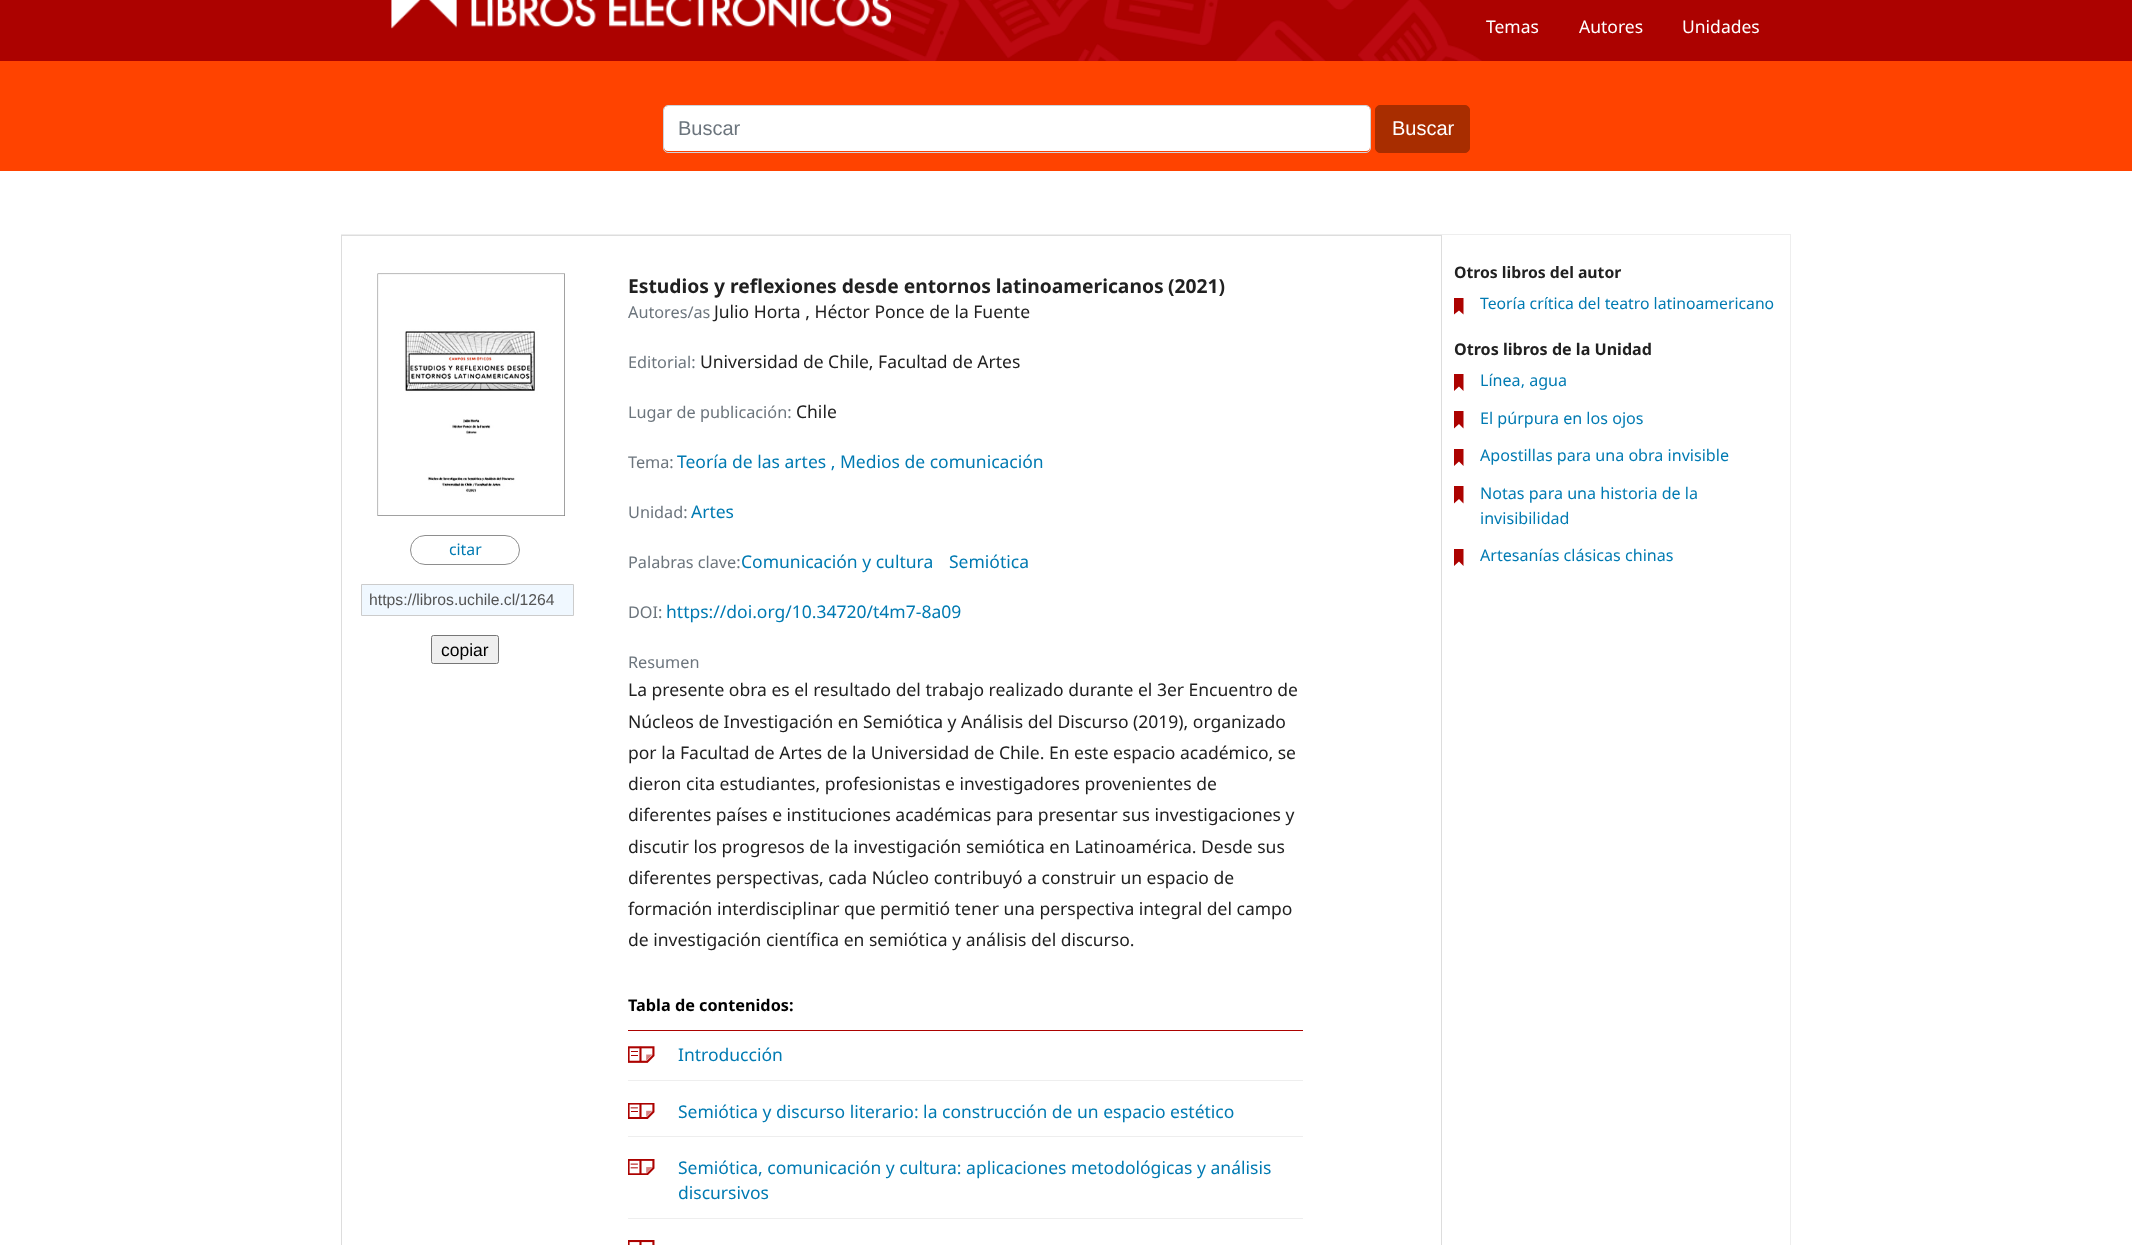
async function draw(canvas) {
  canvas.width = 2132;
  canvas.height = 1245;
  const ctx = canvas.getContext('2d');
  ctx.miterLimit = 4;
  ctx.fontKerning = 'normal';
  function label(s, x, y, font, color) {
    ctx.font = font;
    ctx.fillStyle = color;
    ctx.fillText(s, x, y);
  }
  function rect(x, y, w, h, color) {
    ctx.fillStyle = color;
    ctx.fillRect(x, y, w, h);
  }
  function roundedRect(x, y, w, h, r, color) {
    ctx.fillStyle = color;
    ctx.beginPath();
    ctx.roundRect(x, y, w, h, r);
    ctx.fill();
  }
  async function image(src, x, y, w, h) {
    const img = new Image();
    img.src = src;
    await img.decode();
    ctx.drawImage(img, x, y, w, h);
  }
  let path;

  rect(0, 0, 2132, 1245, '#fff');
  rect(0, 0, 2132, 61, '#ac0200');
  await image('assets/img1.png', 842, 0, 640, 61);
  await image('assets/img2.png', 391, 0, 500, 29);
  label('Temas', 1486, 33, '17.5px Noto Sans', '#fff');
  label('Autores', 1579, 33, '17.5px Noto Sans', '#fff');
  label('Unidades', 1682, 33, '17.5px Noto Sans', '#fff');
  rect(0, 61, 2132, 110, '#ff4300');
  roundedRect(664, 106, 706, 45, 4, '#fff');
  ctx.beginPath();
  ctx.roundRect(663.5, 105.5, 707, 47, 4.5);
  ctx.strokeStyle = '#ced4da';
  ctx.stroke();
  label('Buscar', 678, 135, '20px Liberation Sans', '#6c757d');
  ctx.fillStyle = '#a82d00';
  ctx.beginPath();
  ctx.roundRect(1375.5, 105.5, 94, 47, 4.5);
  ctx.fill();
  ctx.strokeStyle = '#a82d00';
  ctx.stroke();
  label('Buscar', 1392, 135, '20px Liberation Sans', '#fff');
  rect(341, 234, 1450, 1, '#eee');
  rect(1790, 234, 1, 1011, '#eee');
  rect(341, 235, 1100, 1, '#ddd');
  rect(341, 235, 1, 1010, '#ddd');
  await image('assets/img3.png', 377, 273, 188, 243);
  ctx.beginPath();
  ctx.roundRect(410.5, 535.5, 109, 29, 14.5);
  ctx.strokeStyle = '#8e8e8e';
  ctx.stroke();
  label('citar', 449, 555, '15.75px Noto Sans', '#007ab2');
  ctx.fillStyle = '#f0f8ff';
  ctx.beginPath();
  ctx.rect(361.5, 584.5, 212, 31);
  ctx.fill();
  ctx.strokeStyle = '#ccc';
  ctx.stroke();
  label('https://libros.uchile.cl/1264', 369, 605, '15.75px Liberation Sans', '#545454');
  ctx.fillStyle = '#efefef';
  ctx.beginPath();
  ctx.roundRect(431.5, 635.5, 67, 28, 2);
  ctx.fill();
  ctx.strokeStyle = '#767676';
  ctx.stroke();
  label('copiar', 441, 656, '17.5px Liberation Sans', '#000');
  label('Estudios y reflexiones desde entornos latinoamericanos', 628, 293, 'bold 19.25px Noto Sans', '#212121');
  label('(2021)', 1168, 293, 'bold 19.25px Noto Sans', '#212121');
  label('Autores/as', 628, 318, '16.25px Noto Sans', '#6c757d');
  label('Julio Horta , Héctor Ponce de la Fuente', 714, 318, '17.5px Noto Sans', '#212121');
  label('Editorial:', 628, 368, '16.25px Noto Sans', '#6c757d');
  label('Universidad de Chile, Facultad de Artes', 700, 368, '17.5px Noto Sans', '#212121');
  label('Lugar de publicación:', 628, 418, '16.25px Noto Sans', '#6c757d');
  label('Chile', 796, 418, '17.5px Noto Sans', '#212121');
  label('Tema:', 628, 468, '16.25px Noto Sans', '#6c757d');
  label('Teoría de las artes , Medios de comunicación', 677, 468, '17.5px Noto Sans', '#007ab2');
  label('Unidad:', 628, 518, '16.25px Noto Sans', '#6c757d');
  label('Artes', 691, 518, '17.5px Noto Sans', '#007ab2');
  label('Palabras clave:', 628, 568, '16.25px Noto Sans', '#6c757d');
  label('Comunicación y cultura', 741, 568, '17.5px Noto Sans', '#007ab2');
  label('Semiótica', 949, 568, '17.5px Noto Sans', '#007ab2');
  label('DOI:', 628, 618, '16.25px Noto Sans', '#6c757d');
  label('https://doi.org/10.34720/t4m7-8a09', 666, 618, '17.5px Noto Sans', '#007ab2');
  label('Resumen', 628, 668, '16.25px Noto Sans', '#6c757d');
  label('La presente obra es el resultado del trabajo realizado durante el 3er Encuentro de', 628, 696, '17.5px Noto Sans', '#212121');
  label('Núcleos de Investigación en Semiótica y Análisis del Discurso (2019), organizado', 628, 728, '17.5px Noto Sans', '#212121');
  label('por la Facultad de Artes de la Universidad de Chile. En este espacio académico, se', 628, 759, '17.5px Noto Sans', '#212121');
  label('dieron cita estudiantes, profesionistas e investigadores provenientes de', 628, 790, '17.5px Noto Sans', '#212121');
  label('diferentes países e instituciones académicas para presentar sus investigaciones y', 628, 821, '17.5px Noto Sans', '#212121');
  label('discutir los progresos de la investigación semiótica en Latinoamérica. Desde sus', 628, 853, '17.5px Noto Sans', '#212121');
  label('diferentes perspectivas, cada Núcleo contribuyó a construir un espacio de', 628, 884, '17.5px Noto Sans', '#212121');
  label('formación interdisciplinar que permitió tener una perspectiva integral del campo', 628, 915, '17.5px Noto Sans', '#212121');
  label('de investigación científica en semiótica y análisis del discurso.', 628, 946, '17.5px Noto Sans', '#212121');
  label('Tabla de contenidos:', 628, 1011, 'bold 16.25px Noto Sans', '#000');
  rect(628, 1030, 675, 1, '#ac0200');
  await image('assets/img4.png', 628, 1046, 27, 17);
  rect(628, 1080, 675, 1, '#eee');
  label('Introducción', 678, 1061, '17.5px Noto Sans', '#007ab2');
  await image('assets/img5.png', 628, 1103, 27, 16);
  rect(628, 1136, 675, 1, '#eee');
  label('Semiótica y discurso literario: la construcción de un espacio estético', 678, 1118, '17.5px Noto Sans', '#007ab2');
  await image('assets/img6.png', 628, 1159, 27, 16);
  rect(628, 1218, 675, 1, '#eee');
  label('Semiótica, comunicación y cultura: aplicaciones metodológicas y análisis', 678, 1174, '17.5px Noto Sans', '#007ab2');
  label('discursivos', 678, 1199, '17.5px Noto Sans', '#007ab2');
  await image('assets/img7.png', 628, 1240, 27, 5);
  rect(1441, 235, 1, 1010, '#ddd');
  label('Otros libros del autor', 1454, 278, 'bold 15.75px Noto Sans', '#212121');
  ctx.save();
  ctx.beginPath();
  ctx.rect(1454, 298, 10, 17);
  ctx.clip();
  ctx.fillStyle = '#ac0200';
  path = new Path2D('M1463.5 314.5L1459 310.5L1454 314.5V297.5H1463.5Z');
  ctx.fill(path, 'evenodd');
  ctx.restore();
  label('Teoría crítica del teatro latinoamericano', 1480, 309, '15.75px Noto Sans', '#007ab2');
  label('Otros libros de la Unidad', 1454, 355, 'bold 16.1px Noto Sans', '#212121');
  ctx.fillStyle = '#ac0200';
  path = new Path2D('M1463.5 391L1459 386.5L1454 391V374H1463.5ZM1463.5 428.5L1459 424L1454 428.5V411H1463.5Z');
  ctx.fill(path, 'evenodd');
  label('Línea, agua', 1480, 386, '16.1px Noto Sans', '#007ab2');
  label('El púrpura en los ojos', 1480, 424, '16.1px Noto Sans', '#007ab2');
  ctx.fillStyle = '#ac0200';
  path = new Path2D('M1463.5 466L1459 461.5L1454 466V449H1463.5ZM1463.5 503.5L1459 499L1454 503.5V486H1463.5Z');
  ctx.fill(path, 'evenodd');
  label('Apostillas para una obra invisible', 1480, 461, '16.1px Noto Sans', '#007ab2');
  label('Notas para una historia de la', 1480, 499, '16.1px Noto Sans', '#007ab2');
  label('invisibilidad', 1480, 524, '16.1px Noto Sans', '#007ab2');
  ctx.fillStyle = '#ac0200';
  path = new Path2D('M1463.5 566L1459 561.5L1454 566V549H1463.5Z');
  ctx.fill(path, 'evenodd');
  label('Artesanías clásicas chinas', 1480, 561, '16.1px Noto Sans', '#007ab2');
}

draw(document.querySelector('canvas'));
